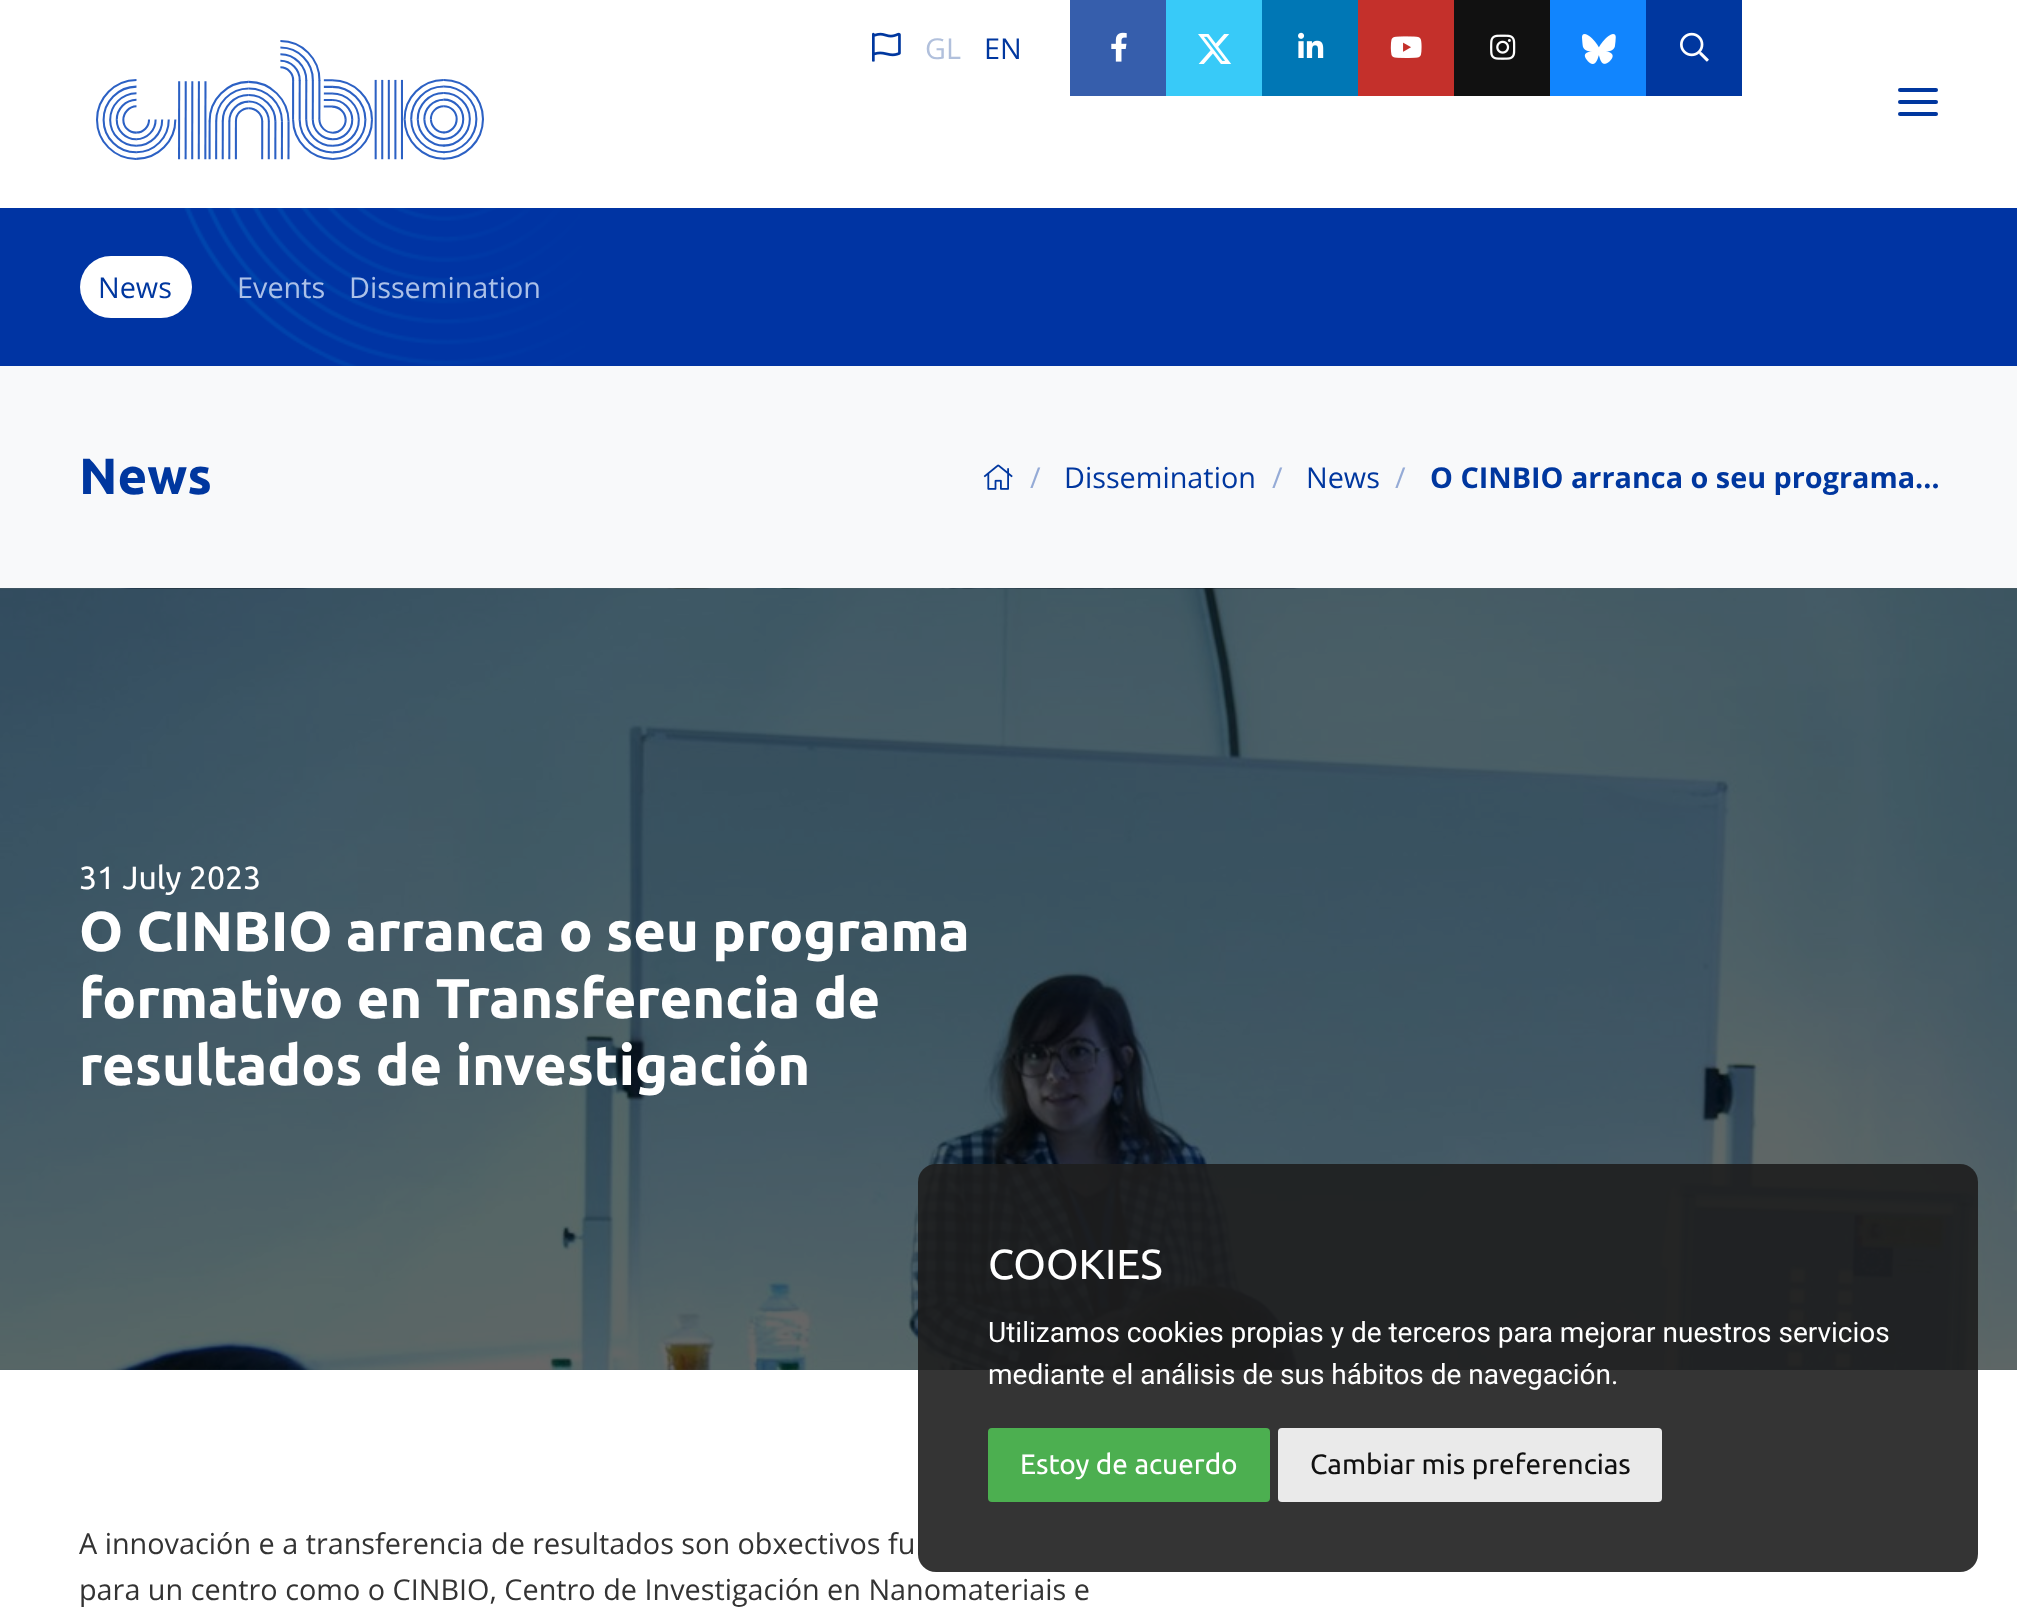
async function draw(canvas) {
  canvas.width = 2017;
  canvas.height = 1611;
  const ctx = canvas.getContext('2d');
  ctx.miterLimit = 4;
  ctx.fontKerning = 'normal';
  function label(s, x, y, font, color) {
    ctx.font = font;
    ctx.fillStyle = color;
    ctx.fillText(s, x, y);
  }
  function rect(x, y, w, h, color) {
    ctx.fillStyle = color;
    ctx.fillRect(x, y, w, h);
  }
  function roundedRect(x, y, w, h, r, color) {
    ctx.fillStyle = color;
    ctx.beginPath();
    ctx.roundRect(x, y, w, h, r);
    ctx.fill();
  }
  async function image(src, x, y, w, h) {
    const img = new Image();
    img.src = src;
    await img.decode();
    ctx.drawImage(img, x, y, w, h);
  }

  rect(0, 0, 2017, 1611, '#fff');
  await image('assets/img1.png', 872, 32, 29, 30);
  label('GL', 925, 59, '28.8px Open Sans', '#b1c0dc');
  label('EN', 984, 59, '28.8px Open Sans', '#00379f');
  rect(1070, 0, 96, 96, '#365eac');
  await image('assets/img2.png', 1111, 32, 16, 30);
  rect(1166, 0, 96, 96, '#38caf8');
  await image('assets/img3.png', 1198, 34, 34, 30);
  rect(1262, 0, 96, 96, '#0077b5');
  await image('assets/img4.png', 1298, 32, 26, 26);
  rect(1358, 0, 96, 96, '#c4302b');
  await image('assets/img5.png', 1390, 36, 32, 22);
  rect(1454, 0, 96, 96, '#111');
  await image('assets/img6.png', 1490, 34, 26, 26);
  rect(1550, 0, 96, 96, '#1185fe');
  await image('assets/img7.png', 1582, 34, 34, 30);
  rect(1646, 0, 96, 96, '#00379f');
  await image('assets/img8.png', 1680, 32, 29, 30);
  await image('assets/img9.png', 96, 40, 388, 120);
  roundedRect(1898, 112, 40, 4, 2, '#00379f');
  roundedRect(1898, 88, 40, 4, 2, '#00379f');
  roundedRect(1898, 100, 40, 4, 2, '#00379f');
  await image('assets/img10.png', 0, 208, 2017, 158);
  roundedRect(80, 256, 112, 62, 31, '#fff');
  label('News', 98, 298, '28.8px Open Sans', '#00379f');
  label('Events', 237, 298, '28.8px Open Sans', '#acc1e8');
  label('Dissemination', 349, 298, '28.8px Open Sans', '#acc1e8');
  rect(0, 366, 2017, 222, '#f8f9fa');
  label('News', 79, 494, 'bold 51px Ubuntu', '#00379f');
  await image('assets/img11.png', 983, 464, 30, 26);
  label('/', 1030, 488, '28.8px Open Sans', '#95abd6');
  label('Dissemination', 1064, 488, '28.8px Open Sans', '#00379f');
  label('/', 1272, 488, '28.8px Open Sans', '#95abd6');
  label('News', 1306, 488, '28.8px Open Sans', '#00379f');
  label('/', 1395, 488, '28.8px Open Sans', '#95abd6');
  label('O CINBIO arranca o seu programa…', 1430, 488, 'bold 28.8px Open Sans', '#00379f');
  await image('assets/img12.png', 0, 588, 2017, 782);
  label('31 July 2023', 79, 889, '32px Ubuntu', '#fff');
  label('O CINBIO arranca o seu programa', 79, 951, 'bold 56px Ubuntu', '#fff');
  label('formativo en Transferencia de', 79, 1018, 'bold 56px Ubuntu', '#fff');
  label('resultados de investigación', 79, 1085, 'bold 56px Ubuntu', '#fff');
  label('A innovación e a transferencia de resultados son obxectivos fu', 79, 1554, '28.8px Open Sans', '#333');
  label('para un centro como o CINBIO, Centro de Investigación en Nanomateriais e', 79, 1600, '28.8px Open Sans', '#333');
  roundedRect(918, 1164, 1060, 408, 18, '#1e1e1ee6');
  label('COOKIES', 988, 1279, '42px Ubuntu', '#fff');
  label('Utilizamos cookies propias y de terceros para mejorar nuestros servicios', 988, 1342, '28px Roboto', '#fff');
  label('mediante el análisis de sus hábitos de navegación.', 988, 1384, '28px Roboto', '#fff');
  roundedRect(988, 1428, 282, 74, 4, '#4caf50');
  label('Estoy de acuerdo', 1020, 1474, '28px Ubuntu', '#fff');
  roundedRect(1278, 1428, 384, 74, 4, '#eaeaea');
  label('Cambiar mis preferencias', 1310, 1474, '28px Ubuntu', '#111');
}

draw(document.querySelector('canvas'));
